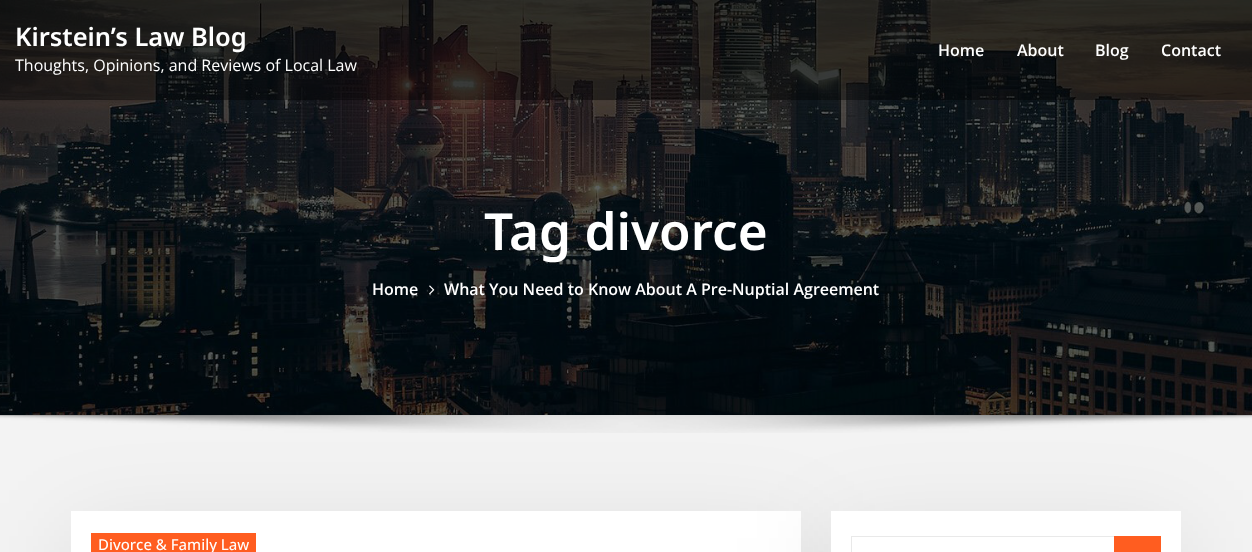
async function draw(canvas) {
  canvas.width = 1252;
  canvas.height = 552;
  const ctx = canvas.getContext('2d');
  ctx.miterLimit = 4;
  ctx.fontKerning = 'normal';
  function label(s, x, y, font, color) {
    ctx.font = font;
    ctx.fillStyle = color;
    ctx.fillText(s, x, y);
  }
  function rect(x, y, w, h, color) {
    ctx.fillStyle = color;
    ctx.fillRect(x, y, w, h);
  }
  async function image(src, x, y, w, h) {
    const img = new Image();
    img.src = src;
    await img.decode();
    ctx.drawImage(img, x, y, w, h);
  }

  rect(0, 0, 1252, 552, '#fff');
  await image('assets/img1.png', 0, 0, 1252, 415);
  rect(0, 0, 1252, 100, '#00000066');
  label('Kirstein’s Law Blog', 15, 46, '600 25.5px Noto Sans', '#fff');
  label('Thoughts, Opinions, and Reviews of Local Law', 15, 71, '16px Open Sans', '#fff');
  label('Home', 938, 56, '600 16px Open Sans', '#fff');
  label('About', 1017, 56, '600 16px Open Sans', '#fff');
  label('Blog', 1095, 56, '600 16px Open Sans', '#fff');
  label('Contact', 1161, 56, '600 16px Open Sans', '#fff');
  label('Tag divorce', 484, 250, '600 51.25px Noto Sans', '#fff');
  label('Home', 372, 295, '600 16px Open Sans', '#fff');
  await image('assets/img2.png', 429, 285, 6, 10);
  label('What You Need to Know About A Pre-Nuptial Agreement', 444, 295, '600 16px Open Sans', '#fff');
  rect(0, 415, 1252, 137, '#f3f3f3');
  ctx.fillStyle = '#0000001a';
  ctx.filter = 'blur(49px)';
  ctx.beginPath();
  ctx.rect(71, 536, 730, 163);
  ctx.fill();
  ctx.filter = 'none';
  rect(71, 511, 730, 41, '#fff');
  ctx.fillStyle = '#0000001a';
  ctx.filter = 'blur(49px)';
  ctx.beginPath();
  ctx.rect(831, 536, 350, 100);
  ctx.fill();
  ctx.filter = 'none';
  await image('assets/img3.png', 0, 415, 1252, 18);
  rect(91, 533, 165, 19, '#ff5d20');
  label('Divorce & Family Law', 98, 550, '500 15px Open Sans', '#fff');
  rect(831, 511, 350, 41, '#fff');
  ctx.strokeStyle = '#e9e9e9';
  ctx.strokeRect(851.5, 536.5, 263, 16);
  rect(1114, 536, 47, 16, '#ff5d20');
}

draw(document.querySelector('canvas'));
